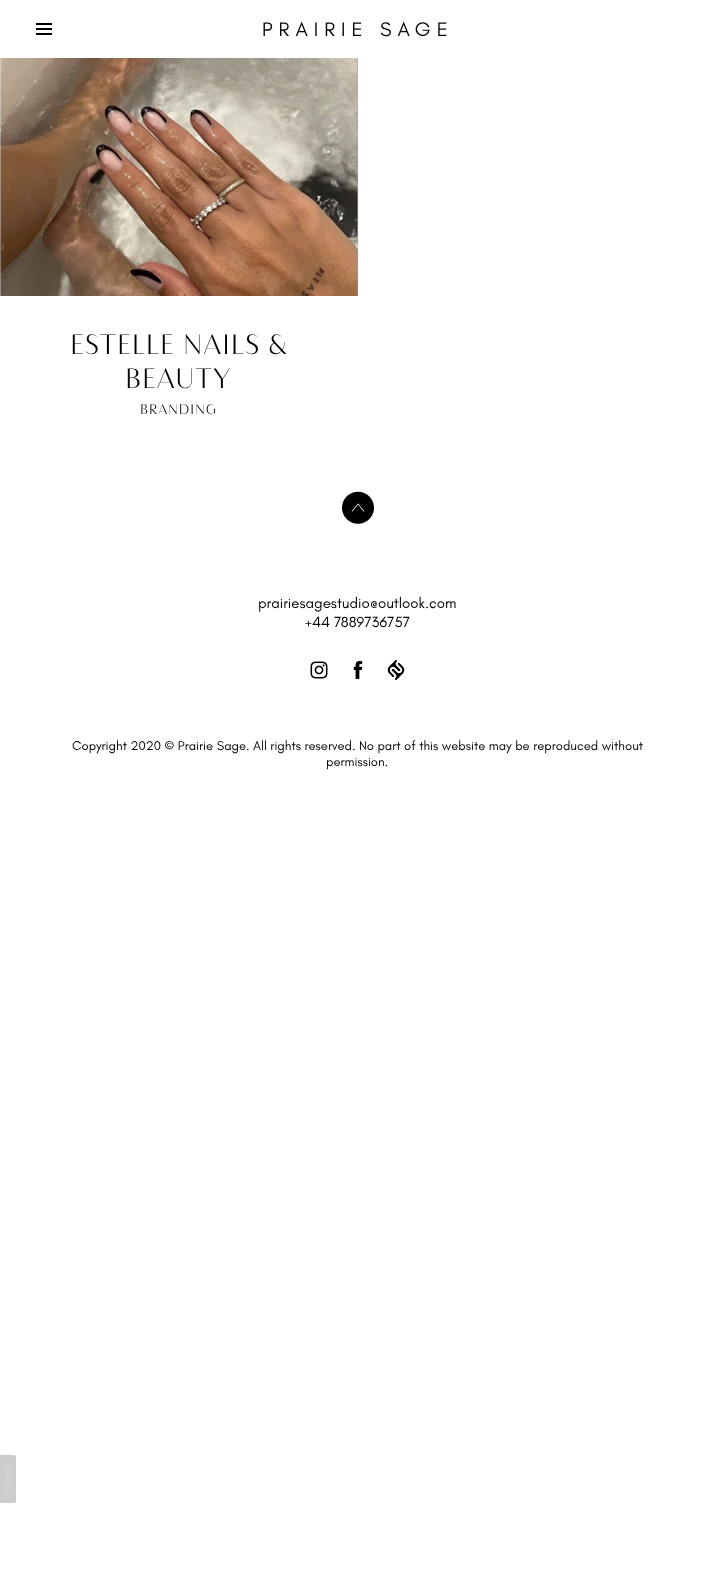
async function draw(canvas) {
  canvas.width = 715;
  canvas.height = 1579;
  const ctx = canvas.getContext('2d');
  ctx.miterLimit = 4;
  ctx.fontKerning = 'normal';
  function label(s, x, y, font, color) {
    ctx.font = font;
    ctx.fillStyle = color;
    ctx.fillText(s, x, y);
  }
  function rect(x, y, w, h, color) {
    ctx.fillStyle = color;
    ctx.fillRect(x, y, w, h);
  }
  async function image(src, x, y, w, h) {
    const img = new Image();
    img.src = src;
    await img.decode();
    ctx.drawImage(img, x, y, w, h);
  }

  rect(0, 0, 715, 1579, '#fff');
  rect(36, 28, 16, 2, '#000');
  rect(36, 23, 16, 2, '#000');
  rect(36, 33, 16, 2, '#000');
  ctx.letterSpacing = '6px';
  label('PRAIRIE SAGE', 262, 36, '20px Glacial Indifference', '#000');
  await image('assets/img1.png', 0, 58, 358, 238);
  ctx.letterSpacing = '1px';
  label('ESTELLE NAILS &', 70, 354, '300 26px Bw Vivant', '#000');
  label('BEAUTY', 125, 388, '300 26px Bw Vivant', '#000');
  label('BRANDING', 140, 414, '300 13px Bw Vivant', '#000');
  await image('assets/img2.png', 342, 491, 32, 33);
  ctx.letterSpacing = '0px';
  label('prairiesagestudio@outlook.com', 258, 608, '15px Glacial Indifference', '#000');
  label('+44 7889736757', 305, 627, '15px Glacial Indifference', '#000');
  await image('assets/img3.png', 310, 661, 18, 18);
  await image('assets/img4.png', 353, 661, 10, 18);
  await image('assets/img5.png', 387, 660, 18, 20);
  label('Copyright 2020 © Prairie Sage. All rights reserved. No part of this website may be reproduced without', 72, 750, '13px Glacial Indifference', '#000');
  label('permission.', 326, 766, '13px Glacial Indifference', '#000');
  await image('assets/img6.png', 0, 1455, 16, 48);
}

draw(document.querySelector('canvas'));
